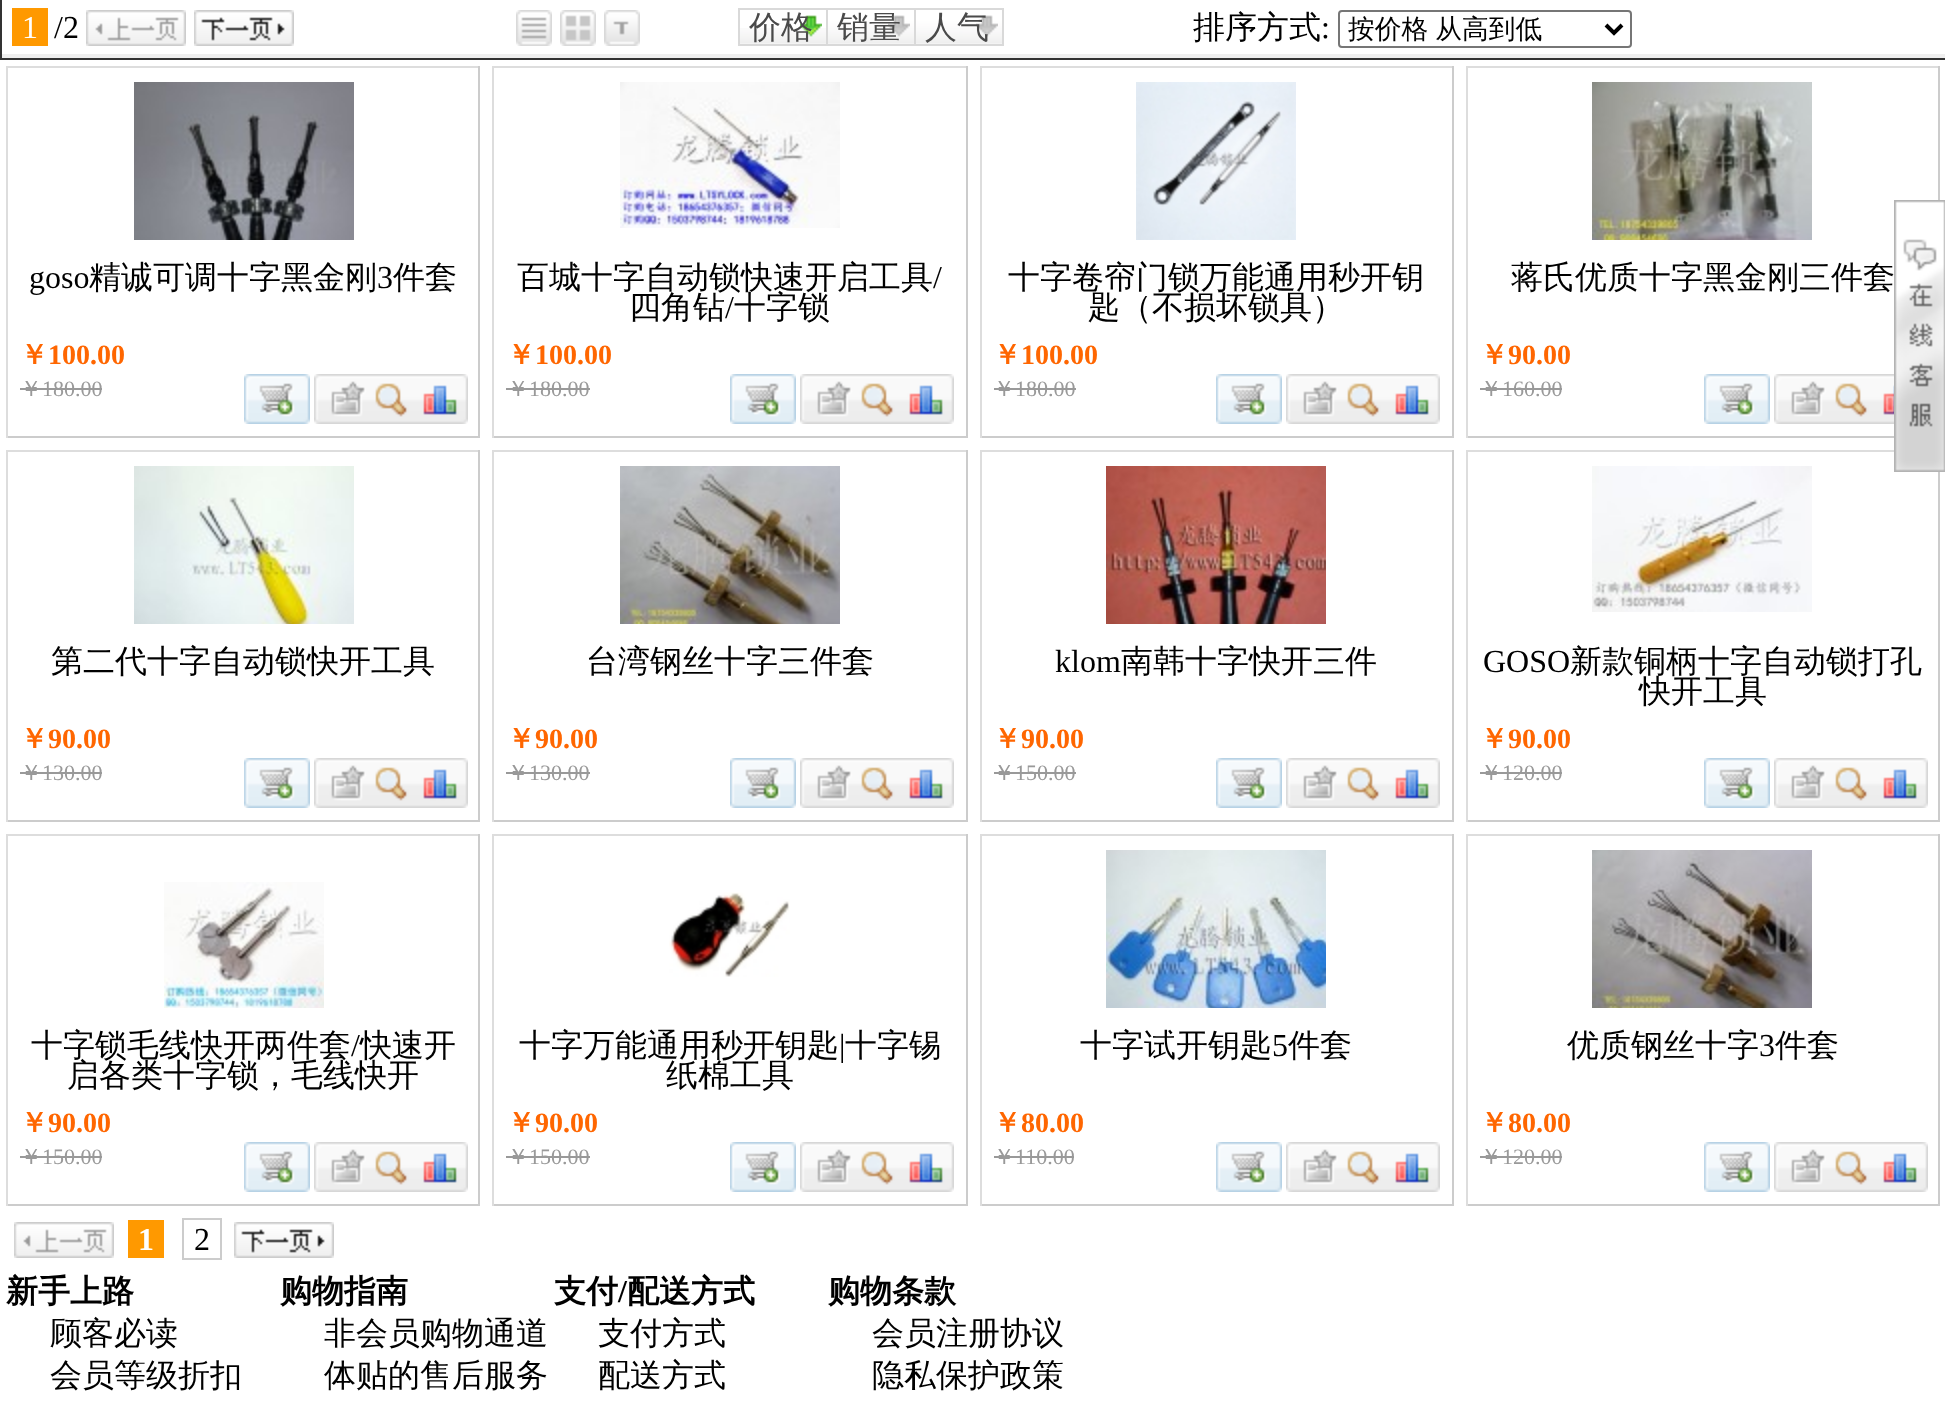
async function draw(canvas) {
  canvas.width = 1945;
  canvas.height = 1402;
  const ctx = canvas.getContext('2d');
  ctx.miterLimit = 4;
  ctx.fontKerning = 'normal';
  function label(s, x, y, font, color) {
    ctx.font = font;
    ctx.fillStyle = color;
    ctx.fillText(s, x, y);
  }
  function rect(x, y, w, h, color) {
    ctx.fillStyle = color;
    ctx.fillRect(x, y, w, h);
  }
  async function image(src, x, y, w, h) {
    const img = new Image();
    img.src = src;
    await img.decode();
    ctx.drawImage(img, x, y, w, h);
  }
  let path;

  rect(0, 0, 1945, 1402, '#fff');
  rect(0, 58, 1945, 2, '#333');
  rect(0, 0, 2, 60, '#333');
  rect(2, 54, 1943, 4, '#efefef');
  rect(12, 8, 36, 38, '#f90');
  label('1', 22, 38, '32px Liberation Serif', '#fff');
  label('/2', 54, 38, '32px Liberation Serif', '#000');
  await image('assets/img1.png', 86, 10, 100, 36);
  await image('assets/img2.png', 194, 10, 100, 36);
  await image('assets/img3.png', 516, 10, 36, 36);
  await image('assets/img4.png', 560, 10, 36, 36);
  await image('assets/img5.png', 604, 10, 36, 36);
  await image('assets/img6.png', 740, 28, 86, 16);
  ctx.strokeStyle = '#d9d9d9';
  ctx.lineWidth = 2;
  ctx.strokeRect(739, 9, 88, 36);
  await image('assets/img7.png', 800, 15, 22, 22);
  label('价格', 749, 38, '500 32px WenQuanYi Zen Hei', '#4a4a4a');
  await image('assets/img8.png', 828, 10, 86, 34);
  ctx.strokeRect(827, 9, 88, 36);
  await image('assets/img9.png', 888, 15, 22, 22);
  label('销量', 837, 38, '500 32px WenQuanYi Zen Hei', '#4a4a4a');
  await image('assets/img8.png', 916, 10, 86, 34);
  ctx.strokeRect(915, 9, 88, 36);
  await image('assets/img9.png', 976, 15, 22, 22);
  label('人气', 925, 38, '500 32px WenQuanYi Zen Hei', '#4a4a4a');
  label('排序方式', 1193, 38, '500 32px WenQuanYi Zen Hei', '#000');
  label(':', 1321, 38, '32px Liberation Serif', '#000');
  ctx.beginPath();
  ctx.roundRect(1339, 11, 292, 36, 3);
  ctx.strokeStyle = '#767676';
  ctx.stroke();
  path = new Path2D('M1606 25L1614 33L1622 25');
  ctx.strokeStyle = '#000';
  ctx.lineWidth = 4;
  ctx.stroke(path);
  ctx.wordSpacing = '-1px';
  label('按价格 从高到低', 1348, 38, '500 26.75px WenQuanYi Zen Hei', '#000');
  rect(6, 66, 474, 2, '#ddd');
  rect(478, 66, 2, 372, '#ccc');
  rect(6, 436, 474, 2, '#ccc');
  rect(6, 66, 2, 372, '#ddd');
  await image('assets/img10.png', 134, 82, 220, 158);
  ctx.wordSpacing = '0px';
  label('goso', 29, 288, '32px Liberation Serif', '#000');
  label('精诚可调十字黑金刚', 89, 288, '500 32px WenQuanYi Zen Hei', '#000');
  label('3', 377, 288, '32px Liberation Serif', '#000');
  label('件套', 393, 288, '500 32px WenQuanYi Zen Hei', '#000');
  label('￥', 20, 364, 'bold 28px WenQuanYi Zen Hei', '#f60');
  label('100.00', 48, 364, 'bold 28px Liberation Serif', '#f60');
  label('￥', 20, 396, '500 22px WenQuanYi Zen Hei', '#999');
  label('180.00', 42, 396, '22px Liberation Serif', '#999');
  rect(20, 388, 82, 2, '#999');
  await image('assets/img11.png', 244, 374, 66, 50);
  await image('assets/img12.png', 314, 374, 56, 50);
  await image('assets/img13.png', 370, 374, 46, 50);
  await image('assets/img14.png', 416, 374, 52, 50);
  rect(492, 66, 476, 2, '#ddd');
  rect(966, 66, 2, 372, '#ccc');
  rect(492, 436, 476, 2, '#ccc');
  rect(492, 66, 2, 372, '#ddd');
  await image('assets/img15.png', 620, 82, 220, 146);
  label('百城十字自动锁快速开启工具', 517, 288, '500 32px WenQuanYi Zen Hei', '#000');
  label('/', 933, 288, '32px Liberation Serif', '#000');
  label('四角钻', 629, 318, '500 32px WenQuanYi Zen Hei', '#000');
  label('/', 725, 318, '32px Liberation Serif', '#000');
  label('十字锁', 734, 318, '500 32px WenQuanYi Zen Hei', '#000');
  label('￥', 507, 364, 'bold 28px WenQuanYi Zen Hei', '#f60');
  label('100.00', 535, 364, 'bold 28px Liberation Serif', '#f60');
  label('￥', 507, 396, '500 22px WenQuanYi Zen Hei', '#999');
  label('180.00', 529, 396, '22px Liberation Serif', '#999');
  rect(506, 388, 84, 2, '#999');
  await image('assets/img11.png', 730, 374, 66, 50);
  await image('assets/img12.png', 800, 374, 56, 50);
  await image('assets/img13.png', 856, 374, 46, 50);
  await image('assets/img14.png', 902, 374, 52, 50);
  rect(980, 66, 474, 2, '#ddd');
  rect(1452, 66, 2, 372, '#ccc');
  rect(980, 436, 474, 2, '#ccc');
  rect(980, 66, 2, 372, '#ddd');
  await image('assets/img16.png', 1136, 82, 160, 158);
  label('十字卷帘门锁万能通用秒开钥', 1008, 288, '500 32px WenQuanYi Zen Hei', '#000');
  label('匙（不损坏锁具）', 1088, 318, '500 32px WenQuanYi Zen Hei', '#000');
  label('￥', 993, 364, 'bold 28px WenQuanYi Zen Hei', '#f60');
  label('100.00', 1021, 364, 'bold 28px Liberation Serif', '#f60');
  label('￥', 993, 396, '500 22px WenQuanYi Zen Hei', '#999');
  label('180.00', 1015, 396, '22px Liberation Serif', '#999');
  rect(994, 388, 82, 2, '#999');
  await image('assets/img11.png', 1216, 374, 66, 50);
  await image('assets/img12.png', 1286, 374, 56, 50);
  await image('assets/img13.png', 1342, 374, 46, 50);
  await image('assets/img14.png', 1388, 374, 52, 50);
  rect(1466, 66, 474, 2, '#ddd');
  rect(1938, 66, 2, 134, '#ccc');
  rect(1466, 436, 428, 2, '#ccc');
  rect(1466, 66, 2, 372, '#ddd');
  await image('assets/img17.png', 1592, 82, 220, 158);
  label('蒋氏优质十字黑金刚三件套', 1511, 288, '500 32px WenQuanYi Zen Hei', '#000');
  label('￥', 1480, 364, 'bold 28px WenQuanYi Zen Hei', '#f60');
  label('90.00', 1508, 364, 'bold 28px Liberation Serif', '#f60');
  label('￥', 1480, 396, '500 22px WenQuanYi Zen Hei', '#999');
  label('160.00', 1502, 396, '22px Liberation Serif', '#999');
  rect(1480, 388, 82, 2, '#999');
  await image('assets/img11.png', 1704, 374, 66, 50);
  await image('assets/img12.png', 1774, 374, 56, 50);
  await image('assets/img13.png', 1830, 374, 46, 50);
  await image('assets/img18.png', 1876, 374, 18, 50);
  rect(6, 450, 474, 2, '#ddd');
  rect(478, 450, 2, 372, '#ccc');
  rect(6, 820, 474, 2, '#ccc');
  rect(6, 450, 2, 372, '#ddd');
  await image('assets/img19.png', 134, 466, 220, 158);
  label('第二代十字自动锁快开工具', 51, 672, '500 32px WenQuanYi Zen Hei', '#000');
  label('￥', 20, 748, 'bold 28px WenQuanYi Zen Hei', '#f60');
  label('90.00', 48, 748, 'bold 28px Liberation Serif', '#f60');
  label('￥', 20, 780, '500 22px WenQuanYi Zen Hei', '#999');
  label('130.00', 42, 780, '22px Liberation Serif', '#999');
  rect(20, 772, 82, 2, '#999');
  await image('assets/img11.png', 244, 758, 66, 50);
  await image('assets/img12.png', 314, 758, 56, 50);
  await image('assets/img13.png', 370, 758, 46, 50);
  await image('assets/img14.png', 416, 758, 52, 50);
  rect(492, 450, 476, 2, '#ddd');
  rect(966, 450, 2, 372, '#ccc');
  rect(492, 820, 476, 2, '#ccc');
  rect(492, 450, 2, 372, '#ddd');
  await image('assets/img20.png', 620, 466, 220, 158);
  label('台湾钢丝十字三件套', 586, 672, '500 32px WenQuanYi Zen Hei', '#000');
  label('￥', 507, 748, 'bold 28px WenQuanYi Zen Hei', '#f60');
  label('90.00', 535, 748, 'bold 28px Liberation Serif', '#f60');
  label('￥', 507, 780, '500 22px WenQuanYi Zen Hei', '#999');
  label('130.00', 529, 780, '22px Liberation Serif', '#999');
  rect(506, 772, 84, 2, '#999');
  await image('assets/img11.png', 730, 758, 66, 50);
  await image('assets/img12.png', 800, 758, 56, 50);
  await image('assets/img13.png', 856, 758, 46, 50);
  await image('assets/img14.png', 902, 758, 52, 50);
  rect(980, 450, 474, 2, '#ddd');
  rect(1452, 450, 2, 372, '#ccc');
  rect(980, 820, 474, 2, '#ccc');
  rect(980, 450, 2, 372, '#ddd');
  await image('assets/img21.png', 1106, 466, 220, 158);
  label('klom', 1055, 672, '32px Liberation Serif', '#000');
  label('南韩十字快开三件', 1121, 672, '500 32px WenQuanYi Zen Hei', '#000');
  label('￥', 993, 748, 'bold 28px WenQuanYi Zen Hei', '#f60');
  label('90.00', 1021, 748, 'bold 28px Liberation Serif', '#f60');
  label('￥', 993, 780, '500 22px WenQuanYi Zen Hei', '#999');
  label('150.00', 1015, 780, '22px Liberation Serif', '#999');
  rect(994, 772, 82, 2, '#999');
  await image('assets/img11.png', 1216, 758, 66, 50);
  await image('assets/img12.png', 1286, 758, 56, 50);
  await image('assets/img13.png', 1342, 758, 46, 50);
  await image('assets/img14.png', 1388, 758, 52, 50);
  rect(1466, 450, 428, 2, '#ddd');
  rect(1938, 472, 2, 350, '#ccc');
  rect(1466, 820, 474, 2, '#ccc');
  rect(1466, 450, 2, 372, '#ddd');
  await image('assets/img22.png', 1592, 466, 220, 146);
  label('GOSO', 1483, 672, '32px Liberation Serif', '#000');
  label('新款铜柄十字自动锁打孔', 1570, 672, '500 32px WenQuanYi Zen Hei', '#000');
  label('快开工具', 1639, 702, '500 32px WenQuanYi Zen Hei', '#000');
  label('￥', 1480, 748, 'bold 28px WenQuanYi Zen Hei', '#f60');
  label('90.00', 1508, 748, 'bold 28px Liberation Serif', '#f60');
  label('￥', 1480, 780, '500 22px WenQuanYi Zen Hei', '#999');
  label('120.00', 1502, 780, '22px Liberation Serif', '#999');
  rect(1480, 772, 82, 2, '#999');
  await image('assets/img11.png', 1704, 758, 66, 50);
  await image('assets/img12.png', 1774, 758, 56, 50);
  await image('assets/img13.png', 1830, 758, 46, 50);
  await image('assets/img14.png', 1876, 758, 52, 50);
  rect(6, 834, 474, 2, '#ddd');
  rect(478, 834, 2, 372, '#ccc');
  rect(6, 1204, 474, 2, '#ccc');
  rect(6, 834, 2, 372, '#ddd');
  await image('assets/img23.png', 164, 882, 160, 126);
  label('十字锁毛线快开两件套', 31, 1056, '500 32px WenQuanYi Zen Hei', '#000');
  label('/', 351, 1056, '32px Liberation Serif', '#000');
  label('快速开', 360, 1056, '500 32px WenQuanYi Zen Hei', '#000');
  label('启各类十字锁，毛线快开', 67, 1086, '500 32px WenQuanYi Zen Hei', '#000');
  label('￥', 20, 1132, 'bold 28px WenQuanYi Zen Hei', '#f60');
  label('90.00', 48, 1132, 'bold 28px Liberation Serif', '#f60');
  label('￥', 20, 1164, '500 22px WenQuanYi Zen Hei', '#999');
  label('150.00', 42, 1164, '22px Liberation Serif', '#999');
  rect(20, 1156, 82, 2, '#999');
  await image('assets/img11.png', 244, 1142, 66, 50);
  await image('assets/img12.png', 314, 1142, 56, 50);
  await image('assets/img13.png', 370, 1142, 46, 50);
  await image('assets/img14.png', 416, 1142, 52, 50);
  rect(492, 834, 476, 2, '#ddd');
  rect(966, 834, 2, 372, '#ccc');
  rect(492, 1204, 476, 2, '#ccc');
  rect(492, 834, 2, 372, '#ddd');
  await image('assets/img24.png', 669, 892, 121, 85);
  label('十字万能通用秒开钥匙', 519, 1056, '500 32px WenQuanYi Zen Hei', '#000');
  label('|', 839, 1056, '32px Liberation Serif', '#000');
  label('十字锡', 845, 1056, '500 32px WenQuanYi Zen Hei', '#000');
  label('纸棉工具', 666, 1086, '500 32px WenQuanYi Zen Hei', '#000');
  label('￥', 507, 1132, 'bold 28px WenQuanYi Zen Hei', '#f60');
  label('90.00', 535, 1132, 'bold 28px Liberation Serif', '#f60');
  label('￥', 507, 1164, '500 22px WenQuanYi Zen Hei', '#999');
  label('150.00', 529, 1164, '22px Liberation Serif', '#999');
  rect(506, 1156, 84, 2, '#999');
  await image('assets/img11.png', 730, 1142, 66, 50);
  await image('assets/img12.png', 800, 1142, 56, 50);
  await image('assets/img13.png', 856, 1142, 46, 50);
  await image('assets/img14.png', 902, 1142, 52, 50);
  rect(980, 834, 474, 2, '#ddd');
  rect(1452, 834, 2, 372, '#ccc');
  rect(980, 1204, 474, 2, '#ccc');
  rect(980, 834, 2, 372, '#ddd');
  await image('assets/img25.png', 1106, 850, 220, 158);
  label('十字试开钥匙', 1080, 1056, '500 32px WenQuanYi Zen Hei', '#000');
  label('5', 1272, 1056, '32px Liberation Serif', '#000');
  label('件套', 1288, 1056, '500 32px WenQuanYi Zen Hei', '#000');
  label('￥', 993, 1132, 'bold 28px WenQuanYi Zen Hei', '#f60');
  label('80.00', 1021, 1132, 'bold 28px Liberation Serif', '#f60');
  label('￥', 993, 1164, '500 22px WenQuanYi Zen Hei', '#999');
  label('110.00', 1015, 1164, '22px Liberation Serif', '#999');
  rect(994, 1156, 80, 2, '#999');
  await image('assets/img11.png', 1216, 1142, 66, 50);
  await image('assets/img12.png', 1286, 1142, 56, 50);
  await image('assets/img13.png', 1342, 1142, 46, 50);
  await image('assets/img14.png', 1388, 1142, 52, 50);
  rect(1466, 834, 474, 2, '#ddd');
  rect(1938, 834, 2, 372, '#ccc');
  rect(1466, 1204, 474, 2, '#ccc');
  rect(1466, 834, 2, 372, '#ddd');
  await image('assets/img26.png', 1592, 850, 220, 158);
  label('优质钢丝十字', 1567, 1056, '500 32px WenQuanYi Zen Hei', '#000');
  label('3', 1759, 1056, '32px Liberation Serif', '#000');
  label('件套', 1775, 1056, '500 32px WenQuanYi Zen Hei', '#000');
  label('￥', 1480, 1132, 'bold 28px WenQuanYi Zen Hei', '#f60');
  label('80.00', 1508, 1132, 'bold 28px Liberation Serif', '#f60');
  label('￥', 1480, 1164, '500 22px WenQuanYi Zen Hei', '#999');
  label('120.00', 1502, 1164, '22px Liberation Serif', '#999');
  rect(1480, 1156, 82, 2, '#999');
  await image('assets/img11.png', 1704, 1142, 66, 50);
  await image('assets/img12.png', 1774, 1142, 56, 50);
  await image('assets/img13.png', 1830, 1142, 46, 50);
  await image('assets/img14.png', 1876, 1142, 52, 50);
  await image('assets/img1.png', 14, 1222, 100, 36);
  rect(128, 1220, 36, 38, '#f90');
  label('1', 138, 1250, 'bold 32px Liberation Serif', '#fff');
  ctx.strokeStyle = '#ccc';
  ctx.lineWidth = 2;
  ctx.strokeRect(183, 1219, 38, 40);
  label('2', 194, 1250, '32px Liberation Serif', '#000');
  await image('assets/img2.png', 234, 1222, 100, 36);
  await image('assets/img27.png', 1894, 200, 51, 272);
  label('新手上路', 6, 1302, 'bold 32px WenQuanYi Zen Hei', '#000');
  label('顾客必读', 50, 1344, '500 32px WenQuanYi Zen Hei', '#000');
  label('会员等级折扣', 50, 1386, '500 32px WenQuanYi Zen Hei', '#000');
  label('购物指南', 280, 1302, 'bold 32px WenQuanYi Zen Hei', '#000');
  label('非会员购物通道', 324, 1344, '500 32px WenQuanYi Zen Hei', '#000');
  label('体贴的售后服务', 324, 1386, '500 32px WenQuanYi Zen Hei', '#000');
  label('支付', 554, 1302, 'bold 32px WenQuanYi Zen Hei', '#000');
  label('/', 618, 1302, 'bold 32px Liberation Serif', '#000');
  label('配送方式', 627, 1302, 'bold 32px WenQuanYi Zen Hei', '#000');
  label('支付方式', 598, 1344, '500 32px WenQuanYi Zen Hei', '#000');
  label('配送方式', 598, 1386, '500 32px WenQuanYi Zen Hei', '#000');
  label('购物条款', 828, 1302, 'bold 32px WenQuanYi Zen Hei', '#000');
  label('会员注册协议', 872, 1344, '500 32px WenQuanYi Zen Hei', '#000');
  label('隐私保护政策', 872, 1386, '500 32px WenQuanYi Zen Hei', '#000');
}

draw(document.querySelector('canvas'));
